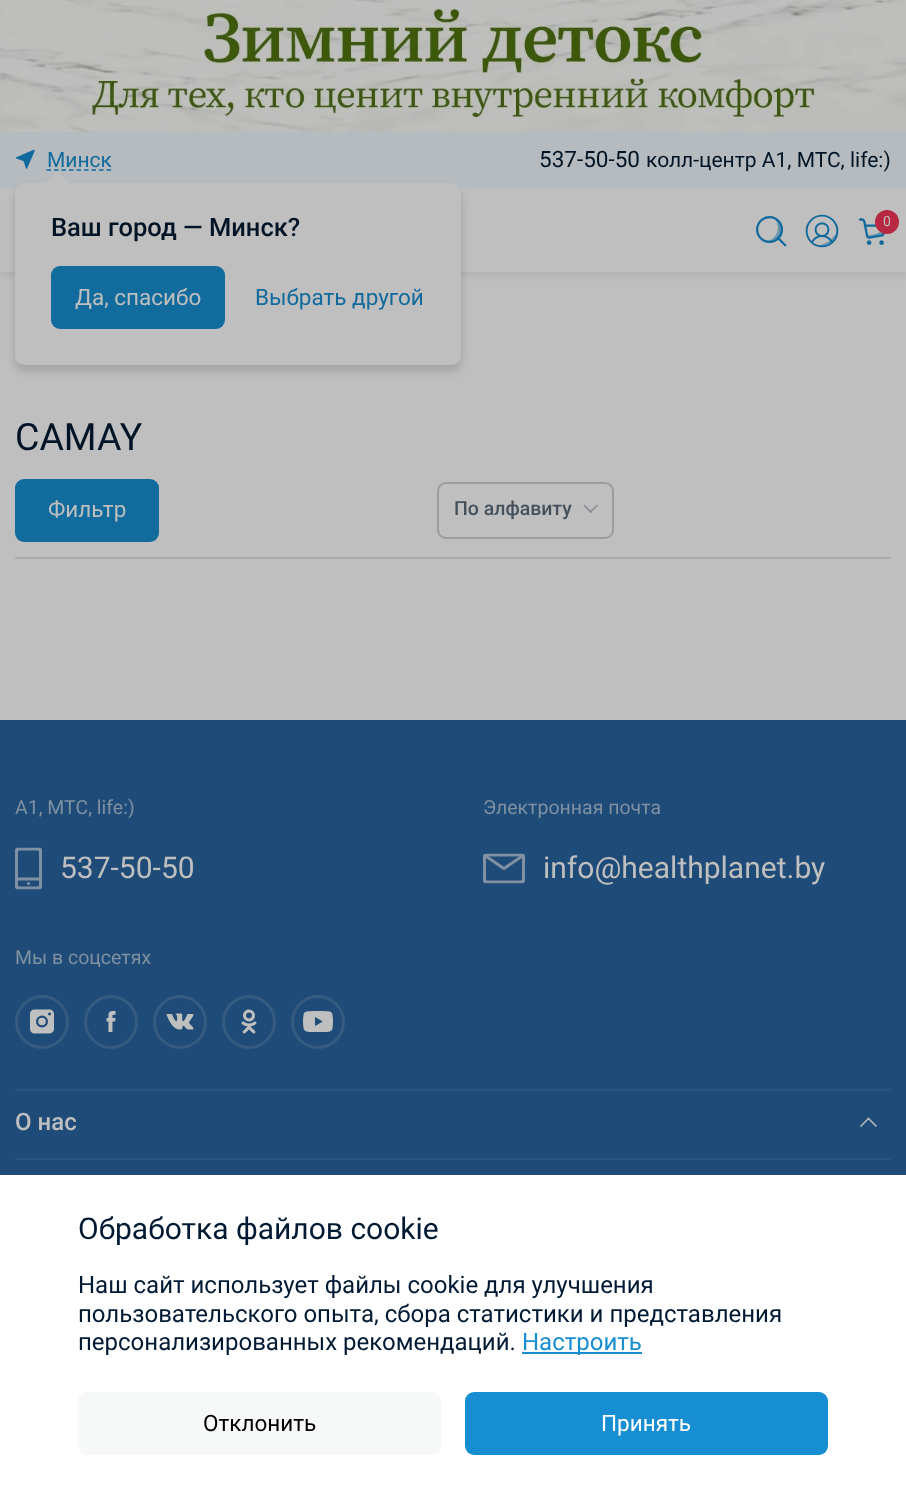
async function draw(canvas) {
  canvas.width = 906;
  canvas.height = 1491;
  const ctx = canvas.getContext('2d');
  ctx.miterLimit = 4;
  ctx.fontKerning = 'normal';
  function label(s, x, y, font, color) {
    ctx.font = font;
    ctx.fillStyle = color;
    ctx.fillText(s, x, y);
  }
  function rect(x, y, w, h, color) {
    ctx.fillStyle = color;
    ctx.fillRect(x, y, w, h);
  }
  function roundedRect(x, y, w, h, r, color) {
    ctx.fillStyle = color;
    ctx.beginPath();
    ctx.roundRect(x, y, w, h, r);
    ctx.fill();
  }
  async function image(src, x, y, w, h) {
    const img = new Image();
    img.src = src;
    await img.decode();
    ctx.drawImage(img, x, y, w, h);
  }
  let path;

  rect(0, 0, 906, 1491, '#bfbfbf');
  await image('assets/img1.png', 0, 0, 906, 132);
  ctx.fillStyle = '#01142614';
  ctx.filter = 'blur(3px)';
  ctx.beginPath();
  ctx.rect(0, 192, 906, 84);
  ctx.fill();
  ctx.filter = 'none';
  rect(0, 132, 906, 56, '#b5bbbe');
  await image('assets/img2.png', 15, 149, 20, 20);
  path = new Path2D('M46.5 170H111');
  ctx.strokeStyle = '#116b9d';
  ctx.lineWidth = 1.5;
  ctx.setLineDash([4.5, 3]);
  ctx.stroke(path);
  label('Минск', 47, 167, '21px Roboto', '#116b9d');
  rect(0, 189, 906, 83, '#bfbfbf');
  ctx.fillStyle = '#01142629';
  ctx.filter = 'blur(4.5px)';
  ctx.beginPath();
  ctx.roundRect(15, 189, 446, 182, 9);
  ctx.fill();
  ctx.filter = 'none';
  roundedRect(15, 183, 446, 182, 9, '#bfbfbf');
  path = new Path2D('M72 186H42L57 171Z');
  ctx.fill(path);
  label('Ваш город — Минск?', 51, 236, '500 25.5px Roboto', '#011426');
  roundedRect(51, 266, 174, 63, 9, '#116b9d');
  label('Да, спасибо', 75, 305, '22.5px Roboto', '#bfbfbf');
  label('Выбрать другой', 255, 305, '22.5px Roboto', '#116b9d');
  label('537-50-50', 539, 167, '22.5px Roboto', '#011426');
  label('колл-центр A1, МТС, life:)', 646, 167, '21px Roboto', '#011426');
  await image('assets/img3.png', 756, 216, 31, 31);
  await image('assets/img4.png', 805, 214, 34, 34);
  await image('assets/img5.png', 858, 218, 27, 27);
  ctx.fillStyle = '#b92842';
  ctx.beginPath();
  ctx.arc(887, 222, 12, 0, 2 * Math.PI);
  ctx.fill();
  label('0', 883, 226, '14px Roboto', '#bfbfbf');
  label('CAMAY', 15, 450, '37.5px Roboto', '#011426');
  rect(15, 557, 876, 2, '#a9abad');
  roundedRect(15, 479, 144, 63, 9, '#116b9d');
  label('Фильтр', 48, 517, '22.5px Roboto', '#bfbfbf');
  ctx.beginPath();
  ctx.roundRect(438, 483, 175, 55, 8);
  ctx.strokeStyle = '#999da1';
  ctx.lineWidth = 2;
  ctx.setLineDash([]);
  ctx.stroke();
  label('По алфавиту', 454, 515, '500 19.5px Roboto', '#44505c');
  ctx.fillStyle = '#868c92';
  path = new Path2D('M597 504.5L598 505.5L590.5 513L589.5 512Z');
  ctx.fill(path);
  path = new Path2D('M584.5 504.5L592 512L590.5 513L583.5 505.5Z');
  ctx.fill(path);
  rect(0, 720, 906, 455, '#1e4b77');
  rect(15, 1089, 876, 2, '#2b547d');
  label('A1, МТС, life:)', 15, 814, '19.5px Roboto', '#7f91a2');
  await image('assets/img6.png', 15, 847, 27, 43);
  label('537-50-50', 60, 878, '30px Roboto', '#bfbfbf');
  label('Электронная почта', 483, 814, '19.5px Roboto', '#7f91a2');
  await image('assets/img7.png', 483, 853, 42, 31);
  label('info@healthplanet.by', 543, 878, '30px Roboto', '#bfbfbf');
  label('Мы в соцсетях', 15, 964, '19.5px Roboto', '#7f91a2');
  ctx.beginPath();
  ctx.arc(42, 1022, 25.5, 0, 2 * Math.PI);
  ctx.strokeStyle = '#bfbfbf26';
  ctx.lineWidth = 3;
  ctx.stroke();
  await image('assets/img8.png', 30, 1009, 24, 25);
  ctx.beginPath();
  ctx.arc(111, 1022, 25.5, 0, 2 * Math.PI);
  ctx.stroke();
  await image('assets/img9.png', 106, 1011, 10, 21);
  ctx.beginPath();
  ctx.arc(180, 1022, 25.5, 0, 2 * Math.PI);
  ctx.stroke();
  await image('assets/img10.png', 166, 1013, 28, 17);
  ctx.beginPath();
  ctx.arc(249, 1022, 25.5, 0, 2 * Math.PI);
  ctx.stroke();
  await image('assets/img11.png', 241, 1009, 16, 25);
  ctx.beginPath();
  ctx.arc(318, 1022, 25.5, 0, 2 * Math.PI);
  ctx.stroke();
  await image('assets/img12.png', 303, 1011, 30, 21);
  rect(15, 1158, 876, 2, '#2b547d');
  label('О нас', 15, 1130, '500 24px Roboto', '#bfbfbf');
  path = new Path2D('M861 1127L860 1126L868.5 1117.5L869.5 1118.5Z');
  ctx.fill(path);
  path = new Path2D('M876 1127L867.5 1118.5L868.5 1117.5L877 1126Z');
  ctx.fill(path);
  rect(0, 1175, 906, 316, '#fff');
  label('Обработка файлов cookie', 78, 1239, '30px Roboto', '#011a33');
  label('Наш сайт использует файлы cookie для улучшения', 78, 1293, '24px Roboto', '#011a33');
  label('пользовательского опыта, сбора статистики и представления', 78, 1322, '24px Roboto', '#011a33');
  label('персонализированных рекомендаций.', 78, 1350, '24px Roboto', '#011a33');
  rect(522, 1352, 120, 2, '#178ed1');
  label('Настроить', 522, 1350, '24px Roboto', '#178ed1');
  roundedRect(78, 1392, 363, 63, 9, '#f7f8f8');
  label('Отклонить', 203, 1431, '22.5px Roboto', '#000');
  roundedRect(465, 1392, 363, 63, 9, '#178ed1');
  label('Принять', 601, 1431, '22.5px Roboto', '#fff');
}

draw(document.querySelector('canvas'));
